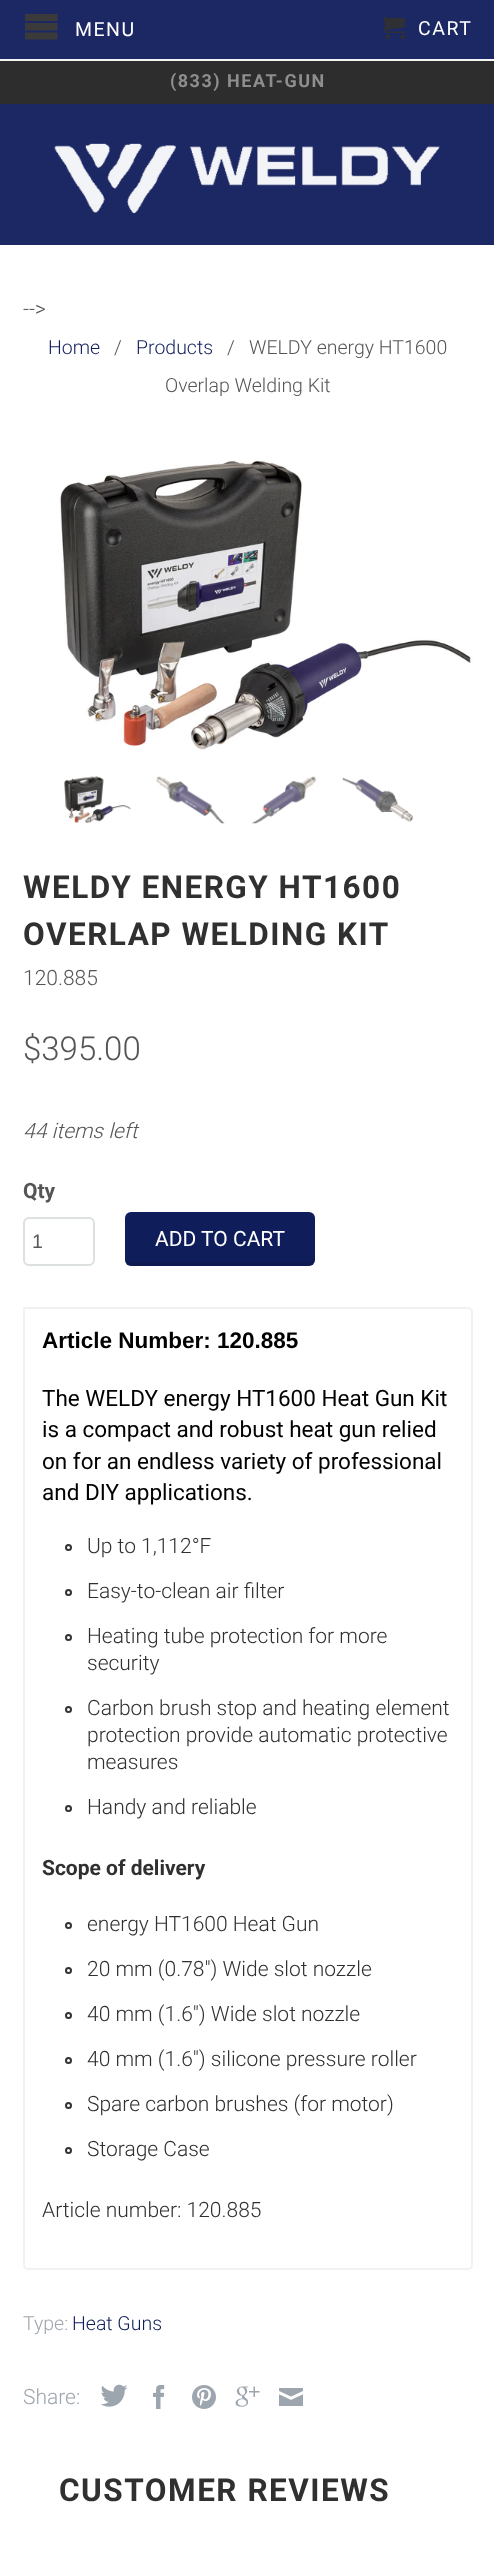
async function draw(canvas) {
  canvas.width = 494;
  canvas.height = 2550;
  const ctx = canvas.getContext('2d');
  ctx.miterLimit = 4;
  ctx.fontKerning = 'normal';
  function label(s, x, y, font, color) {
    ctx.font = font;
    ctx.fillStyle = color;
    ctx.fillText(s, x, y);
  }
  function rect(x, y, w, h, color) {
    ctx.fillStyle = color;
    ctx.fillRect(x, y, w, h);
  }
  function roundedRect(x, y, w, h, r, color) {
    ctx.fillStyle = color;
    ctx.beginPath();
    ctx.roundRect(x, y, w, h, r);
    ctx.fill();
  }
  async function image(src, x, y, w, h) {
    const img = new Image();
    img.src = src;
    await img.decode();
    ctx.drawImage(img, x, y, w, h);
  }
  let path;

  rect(0, 0, 494, 2550, '#fff');
  rect(0, 0, 494, 59, '#1c2863');
  rect(0, 59, 494, 1, '#f4f4f7');
  ctx.fillStyle = '#3a3a3a';
  path = new Path2D('M25 14V21H57.5V14ZM25 23V30.5H57.5V23ZM25 32.5V39.5H57.5V32.5Z');
  ctx.fill(path);
  ctx.letterSpacing = '1.5px';
  label('MENU', 75, 36, '19.5px Roboto', '#fff');
  await image('assets/img1.png', 382, 15, 23, 24);
  label('CART', 418, 35, '19.5px Roboto', '#fff');
  rect(0, 104, 494, 141, '#1c2863');
  rect(0, 61, 494, 43, '#2d2d2d');
  rect(0, 60, 494, 1, '#f5f5f5');
  label('(833) HEAT-GUN', 170, 87, 'bold 18px Roboto', '#8e8e8e');
  await image('assets/img2.png', 54, 143, 386, 71);
  ctx.letterSpacing = '0px';
  label('-->', 23, 316, '300 21px Roboto', '#555');
  label('Home', 48, 354, '300 19.5px Roboto', '#101d5b');
  label('/', 114, 354, '300 19.5px Roboto', '#555');
  label('Products', 136, 354, '300 19.5px Roboto', '#101d5b');
  label('/', 227, 354, '300 19.5px Roboto', '#555');
  label('WELDY energy HT1600', 249, 354, '300 19.5px Roboto', '#555');
  label('Overlap Welding Kit', 165, 392, '300 19.5px Roboto', '#555');
  await image('assets/img3.png', 59, 460, 414, 290);
  await image('assets/img4.png', 64, 776, 67, 48);
  await image('assets/img5.png', 156, 776, 69, 48);
  await image('assets/img6.png', 251, 776, 65, 48);
  await image('assets/img7.png', 342, 777, 72, 45);
  ctx.letterSpacing = '1.5px';
  label('WELDY ENERGY HT1600', 23, 898, 'bold 31.5px Roboto', '#303030');
  label('OVERLAP WELDING KIT', 23, 945, 'bold 31.5px Roboto', '#303030');
  ctx.letterSpacing = '0px';
  label('120.885', 23, 985, '300 21px Roboto', '#555');
  label('$395.00', 23, 1060, '300 33px Roboto', '#555');
  label('44 items left', 23, 1138, 'italic 300 21px Roboto', '#555');
  label('Qty', 23, 1198, 'bold 21px Roboto', '#555');
  ctx.beginPath();
  ctx.roundRect(24, 1218, 70, 47, 5);
  ctx.strokeStyle = '#dce0e0';
  ctx.lineWidth = 2;
  ctx.stroke();
  label('1', 32, 1248, '19.5px Liberation Sans', '#565a5c');
  roundedRect(125, 1212, 190, 54, 6, '#101d5b');
  ctx.fillStyle = '#0000001a';
  path = new Path2D('M125 1259V1260C125 1263 128 1266 131 1266H309C312 1266 315 1263 315 1260V1256C315 1259 312 1262 309 1262H130C128 1262 126 1261 125 1259Z');
  ctx.fill(path);
  label('ADD TO CART', 155, 1246, '21px Roboto', '#fff');
  ctx.beginPath();
  ctx.roundRect(24, 1308, 448, 961, [0, 4, 4, 4]);
  ctx.strokeStyle = '#f1f1f1';
  ctx.stroke();
  label('Article Number: 120.885', 42, 1348, 'bold 22.5px Liberation Sans', '#000');
  label('The WELDY energy HT1600 Heat Gun Kit', 42, 1406, '22.5px Roboto', '#000');
  label('is a compact and robust heat gun relied', 42, 1437, '22.5px Roboto', '#000');
  label('on for an endless variety of professional', 42, 1469, '22.5px Roboto', '#000');
  label('and DIY applications.', 42, 1500, '22.5px Roboto', '#000');
  ctx.beginPath();
  ctx.arc(68.5, 1547.5, 2.5, 0, 2 * Math.PI);
  ctx.strokeStyle = '#333';
  ctx.stroke();
  label('Up to 1,112°F', 87, 1553, '300 21px Roboto', '#303030');
  ctx.beginPath();
  ctx.arc(68.5, 1592.5, 2.5, 0, 2 * Math.PI);
  ctx.stroke();
  label('Easy-to-clean air filter', 87, 1598, '300 21px Roboto', '#303030');
  ctx.beginPath();
  ctx.arc(68.5, 1637.5, 2.5, 0, 2 * Math.PI);
  ctx.stroke();
  label('Heating tube protection for more', 87, 1643, '300 21px Roboto', '#303030');
  label('security', 87, 1670, '300 21px Roboto', '#303030');
  ctx.beginPath();
  ctx.arc(68.5, 1709.5, 2.5, 0, 2 * Math.PI);
  ctx.stroke();
  label('Carbon brush stop and heating element', 87, 1715, '300 21px Roboto', '#303030');
  label('protection provide automatic protective', 87, 1742, '300 21px Roboto', '#303030');
  label('measures', 87, 1769, '300 21px Roboto', '#303030');
  ctx.beginPath();
  ctx.arc(68.5, 1808.5, 2.5, 0, 2 * Math.PI);
  ctx.stroke();
  label('Handy and reliable', 87, 1814, '300 21px Roboto', '#303030');
  label('Scope of delivery', 42, 1875, 'bold 21px Roboto', '#303030');
  ctx.beginPath();
  ctx.arc(68.5, 1925.5, 2.5, 0, 2 * Math.PI);
  ctx.stroke();
  label('energy HT1600 Heat Gun', 87, 1931, '300 21px Roboto', '#303030');
  ctx.beginPath();
  ctx.arc(68.5, 1970.5, 2.5, 0, 2 * Math.PI);
  ctx.stroke();
  label('20 mm (0.78") Wide slot nozzle', 87, 1976, '300 21px Roboto', '#303030');
  ctx.beginPath();
  ctx.arc(68.5, 2015.5, 2.5, 0, 2 * Math.PI);
  ctx.stroke();
  label('40 mm (1.6") Wide slot nozzle', 87, 2021, '300 21px Roboto', '#303030');
  ctx.beginPath();
  ctx.arc(68.5, 2060.5, 2.5, 0, 2 * Math.PI);
  ctx.stroke();
  label('40 mm (1.6") silicone pressure roller', 87, 2066, '300 21px Roboto', '#303030');
  ctx.beginPath();
  ctx.arc(68.5, 2105.5, 2.5, 0, 2 * Math.PI);
  ctx.stroke();
  label('Spare carbon brushes (for motor)', 87, 2111, '300 21px Roboto', '#303030');
  ctx.beginPath();
  ctx.arc(68.5, 2150.5, 2.5, 0, 2 * Math.PI);
  ctx.stroke();
  label('Storage Case', 87, 2156, '300 21px Roboto', '#303030');
  label('Article number: 120.885', 42, 2217, '300 21px Roboto', '#303030');
  label('Type:', 23, 2330, '300 19.5px Roboto', '#9da6ae');
  label('Heat Guns', 72, 2330, '300 19.5px Roboto', '#101d5b');
  label('Share:', 23, 2404, '300 21px Roboto', '#9da6ae');
  await image('assets/img8.png', 100, 2384, 28, 23);
  await image('assets/img9.png', 153, 2385, 12, 24);
  await image('assets/img10.png', 192, 2385, 24, 24);
  await image('assets/img11.png', 235, 2386, 25, 21);
  await image('assets/img12.png', 279, 2388, 24, 18);
  ctx.letterSpacing = '1.5px';
  label('CUSTOMER REVIEWS', 59, 2501, 'bold 31.5px Roboto', '#303030');
}

draw(document.querySelector('canvas'));
